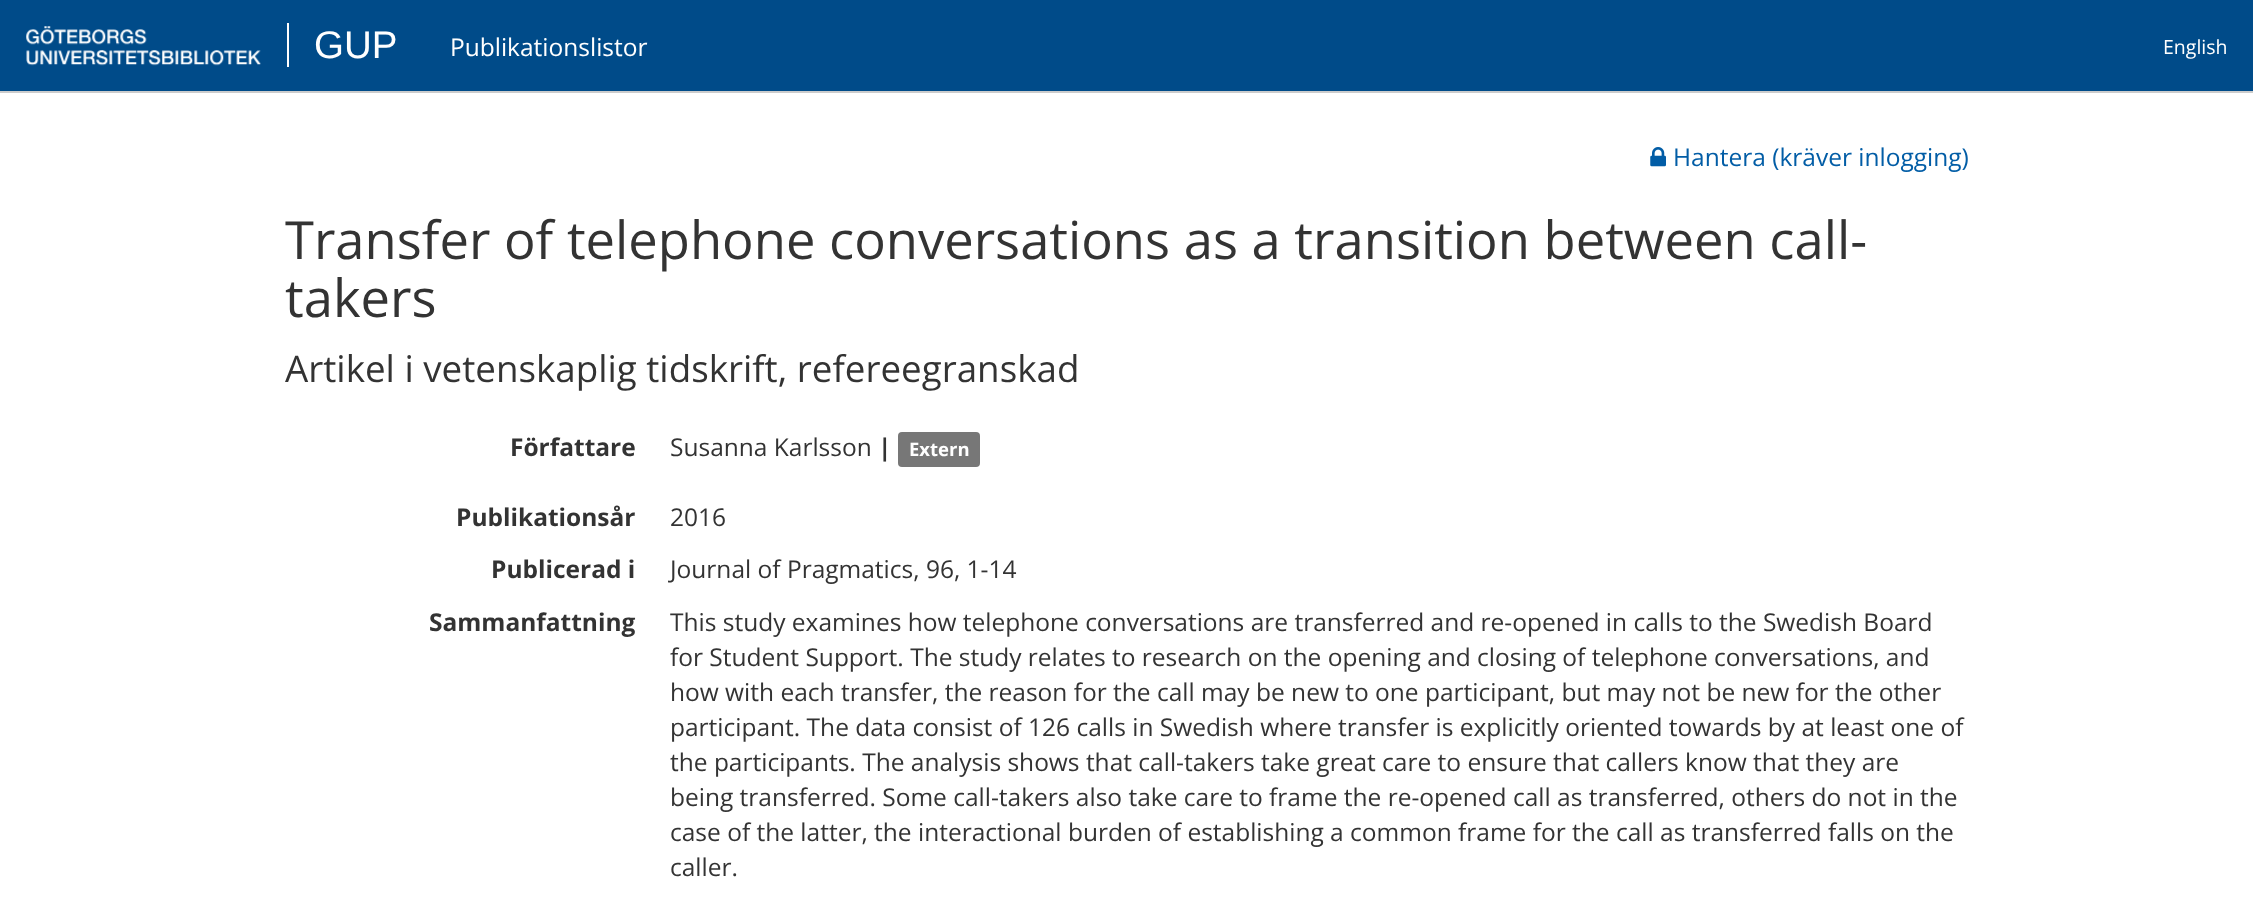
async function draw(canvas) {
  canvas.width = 2253;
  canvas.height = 912;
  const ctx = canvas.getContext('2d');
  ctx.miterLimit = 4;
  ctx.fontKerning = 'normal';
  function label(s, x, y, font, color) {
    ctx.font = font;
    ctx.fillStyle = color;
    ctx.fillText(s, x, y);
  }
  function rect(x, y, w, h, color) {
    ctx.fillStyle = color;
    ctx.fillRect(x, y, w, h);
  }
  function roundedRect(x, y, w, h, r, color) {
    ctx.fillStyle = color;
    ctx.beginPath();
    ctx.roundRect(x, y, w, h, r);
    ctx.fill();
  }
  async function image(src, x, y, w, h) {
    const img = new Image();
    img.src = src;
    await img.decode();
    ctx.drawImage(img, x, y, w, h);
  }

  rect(0, 0, 2253, 912, '#fff');
  rect(0, 0, 2253, 91, '#004b89');
  rect(0, 91, 2253, 2, '#ccc');
  await image('assets/img1.png', 26, 26, 235, 40);
  rect(287, 23, 2, 44, '#fff');
  label('GUP', 314, 58, '38.5px Liberation Sans', '#fff');
  label('Publikationslistor', 450, 56, '24.5px Open Sans', '#fff');
  label('English', 2163, 54, '19.5px Open Sans', '#fff');
  await image('assets/img2.png', 1650, 147, 16, 20);
  label('Hantera (kräver inlogging)', 1673, 166, '24.5px Open Sans', '#025da6');
  label('Transfer of telephone conversations as a transition between call-', 285, 259, '52.5px Open Sans', '#333');
  label('takers', 285, 317, '52.5px Open Sans', '#333');
  label('Artikel i vetenskaplig tidskrift, refereegranskad', 285, 382, '36.75px Open Sans', '#333');
  label('Författare', 510, 456, 'bold 24.5px Open Sans', '#333');
  label('Susanna Karlsson', 670, 456, '24.5px Open Sans', '#333');
  label('|', 878, 456, 'bold 24.5px Open Sans', '#333');
  roundedRect(898, 432, 82, 35, 4, '#777');
  label('Extern', 909, 456, 'bold 18.5px Open Sans', '#fff');
  label('Publikationsår', 456, 526, 'bold 24.5px Open Sans', '#333');
  label('2016', 670, 526, '24.5px Open Sans', '#333');
  label('Publicerad i', 491, 578, 'bold 24.5px Open Sans', '#333');
  label('Journal of Pragmatics, 96, 1-14', 670, 578, '24.5px Open Sans', '#333');
  label('Sammanfattning', 429, 631, 'bold 24.5px Open Sans', '#333');
  label('This study examines how telephone conversations are transferred and re-opened in calls to the Swedish Board', 670, 631, '24.5px Open Sans', '#333');
  label('for Student Support. The study relates to research on the opening and closing of telephone conversations, and', 670, 666, '24.5px Open Sans', '#333');
  label('how with each transfer, the reason for the call may be new to one participant, but may not be new for the other', 670, 701, '24.5px Open Sans', '#333');
  label('participant. The data consist of 126 calls in Swedish where transfer is explicitly oriented towards by at least one of', 670, 736, '24.5px Open Sans', '#333');
  label('the participants. The analysis shows that call-takers take great care to ensure that callers know that they are', 670, 771, '24.5px Open Sans', '#333');
  label('being transferred. Some call-takers also take care to frame the re-opened call as transferred, others do not in the', 670, 806, '24.5px Open Sans', '#333');
  label('case of the latter, the interactional burden of establishing a common frame for the call as transferred falls on the', 670, 841, '24.5px Open Sans', '#333');
  label('caller.', 670, 876, '24.5px Open Sans', '#333');
}

draw(document.querySelector('canvas'));
